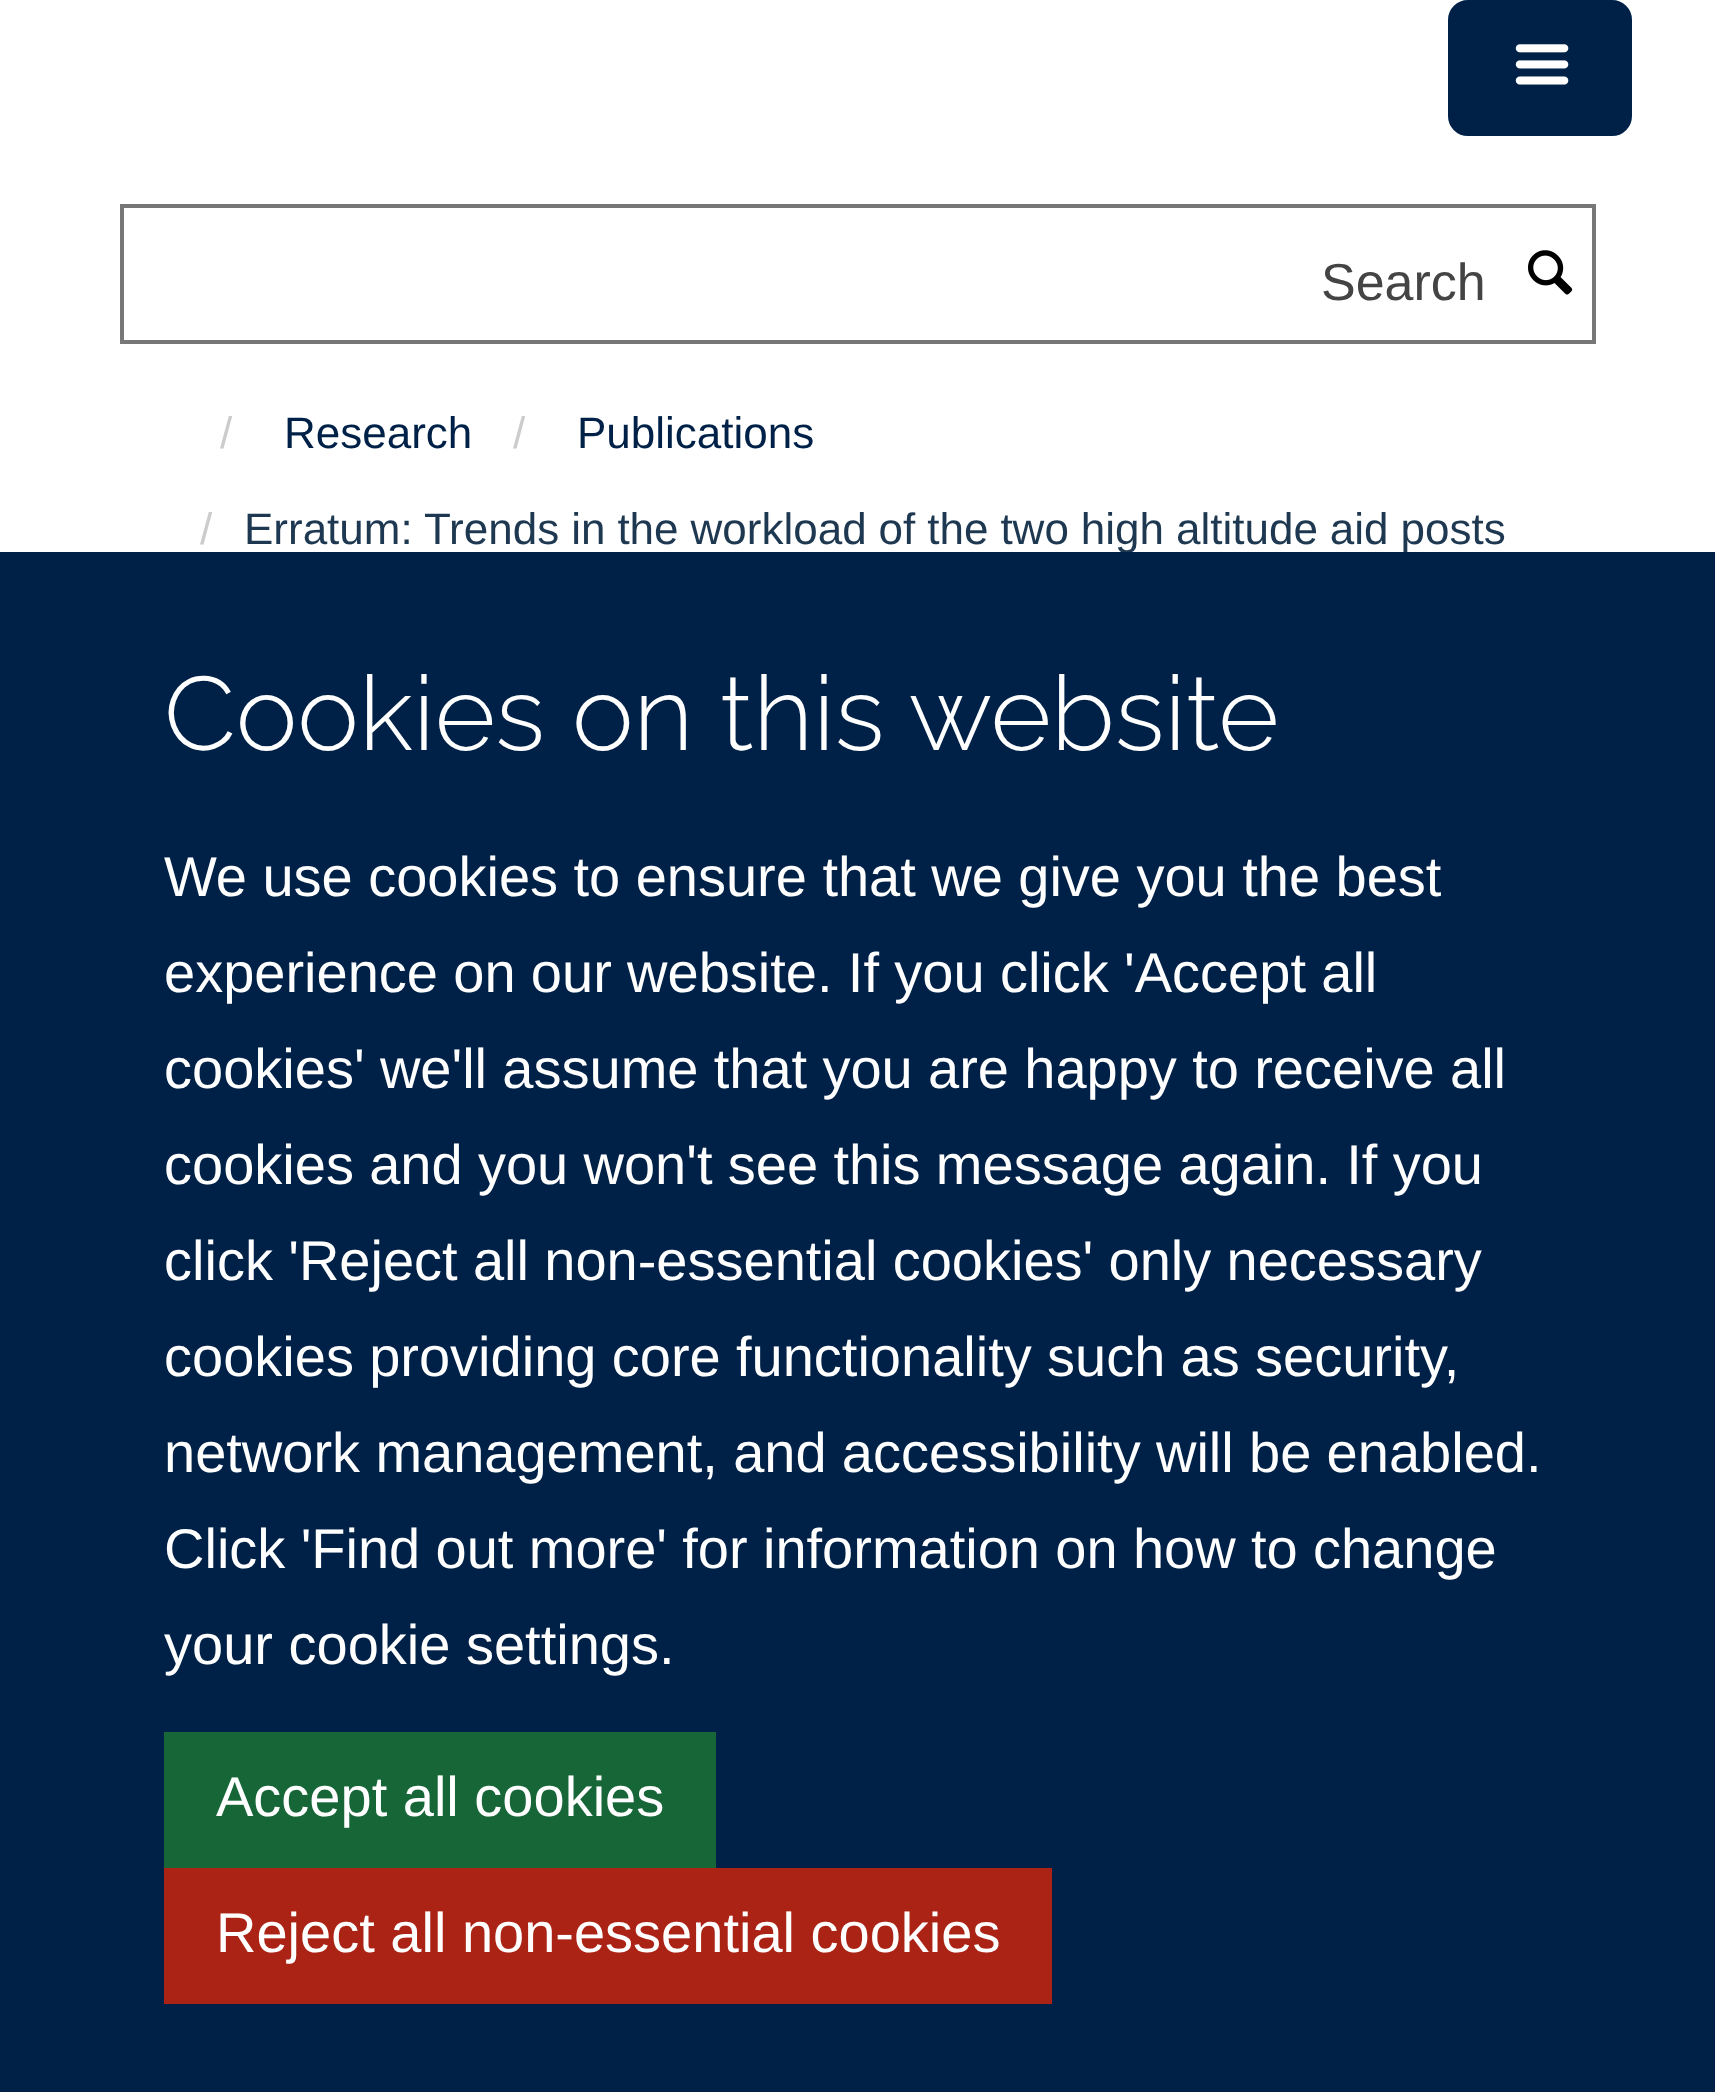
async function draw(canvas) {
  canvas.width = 1715;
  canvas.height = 2092;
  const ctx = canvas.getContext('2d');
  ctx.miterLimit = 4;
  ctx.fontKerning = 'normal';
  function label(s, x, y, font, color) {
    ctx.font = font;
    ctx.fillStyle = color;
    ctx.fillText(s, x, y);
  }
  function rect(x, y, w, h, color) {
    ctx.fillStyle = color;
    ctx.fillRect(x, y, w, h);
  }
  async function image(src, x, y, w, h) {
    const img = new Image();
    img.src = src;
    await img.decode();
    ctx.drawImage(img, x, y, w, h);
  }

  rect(0, 0, 1715, 2092, '#fff');
  ctx.fillStyle = '#002147';
  ctx.beginPath();
  ctx.roundRect(1450, 2, 180, 132, 18);
  ctx.fill();
  ctx.strokeStyle = '#002147';
  ctx.lineWidth = 4;
  ctx.stroke();
  await image('assets/img1.png', 1515, 44, 54, 41);
  ctx.strokeStyle = '#777';
  ctx.strokeRect(122, 206, 1472, 136);
  label('Search', 1321, 300, '52px Liberation Sans', '#444');
  await image('assets/img2.png', 1528, 250, 45, 45);
  label('/', 220, 448, '44px Liberation Sans', '#ccc');
  label('Research', 284, 448, '44px Liberation Sans', '#002147');
  label('/', 513, 448, '44px Liberation Sans', '#ccc');
  label('Publications', 577, 448, '44px Liberation Sans', '#002147');
  label('/', 200, 544, '44px Liberation Sans', '#ccc');
  ctx.wordSpacing = '-0.25px';
  label('Erratum: Trends in the workload of the two high altitude aid posts', 244, 544, '44px Liberation Sans', '#1d3850');
  rect(0, 552, 1715, 1540, '#002147');
  ctx.wordSpacing = '0px';
  label('Cookies on this website', 164, 750, '300 104px Raleway', '#fff');
  ctx.wordSpacing = '-0.1px';
  label('We use cookies to ensure that we give you the best', 164, 896, '56px Liberation Sans', '#fff');
  ctx.wordSpacing = '-0.25px';
  label('experience on our website. If you click \'Accept all', 164, 992, '56px Liberation Sans', '#fff');
  label('cookies\' we\'ll assume that you are happy to receive all', 164, 1088, '56px Liberation Sans', '#fff');
  label('cookies and you won\'t see this message again. If you', 164, 1184, '56px Liberation Sans', '#fff');
  label('click \'Reject all non-essential cookies\' only necessary', 164, 1280, '56px Liberation Sans', '#fff');
  label('cookies providing core functionality such as security,', 164, 1376, '56px Liberation Sans', '#fff');
  label('network management, and accessibility will be enabled.', 164, 1472, '56px Liberation Sans', '#fff');
  label('Click \'Find out more\' for information on how to change', 164, 1568, '56px Liberation Sans', '#fff');
  ctx.wordSpacing = '0px';
  label('your cookie settings.', 164, 1664, '56px Liberation Sans', '#fff');
  rect(164, 1732, 552, 136, '#176638');
  label('Accept all cookies', 216, 1816, '56px Liberation Sans', '#fff');
  rect(164, 1868, 888, 136, '#ab2315');
  label('Reject all non-essential cookies', 216, 1952, '56px Liberation Sans', '#fff');
}

draw(document.querySelector('canvas'));
